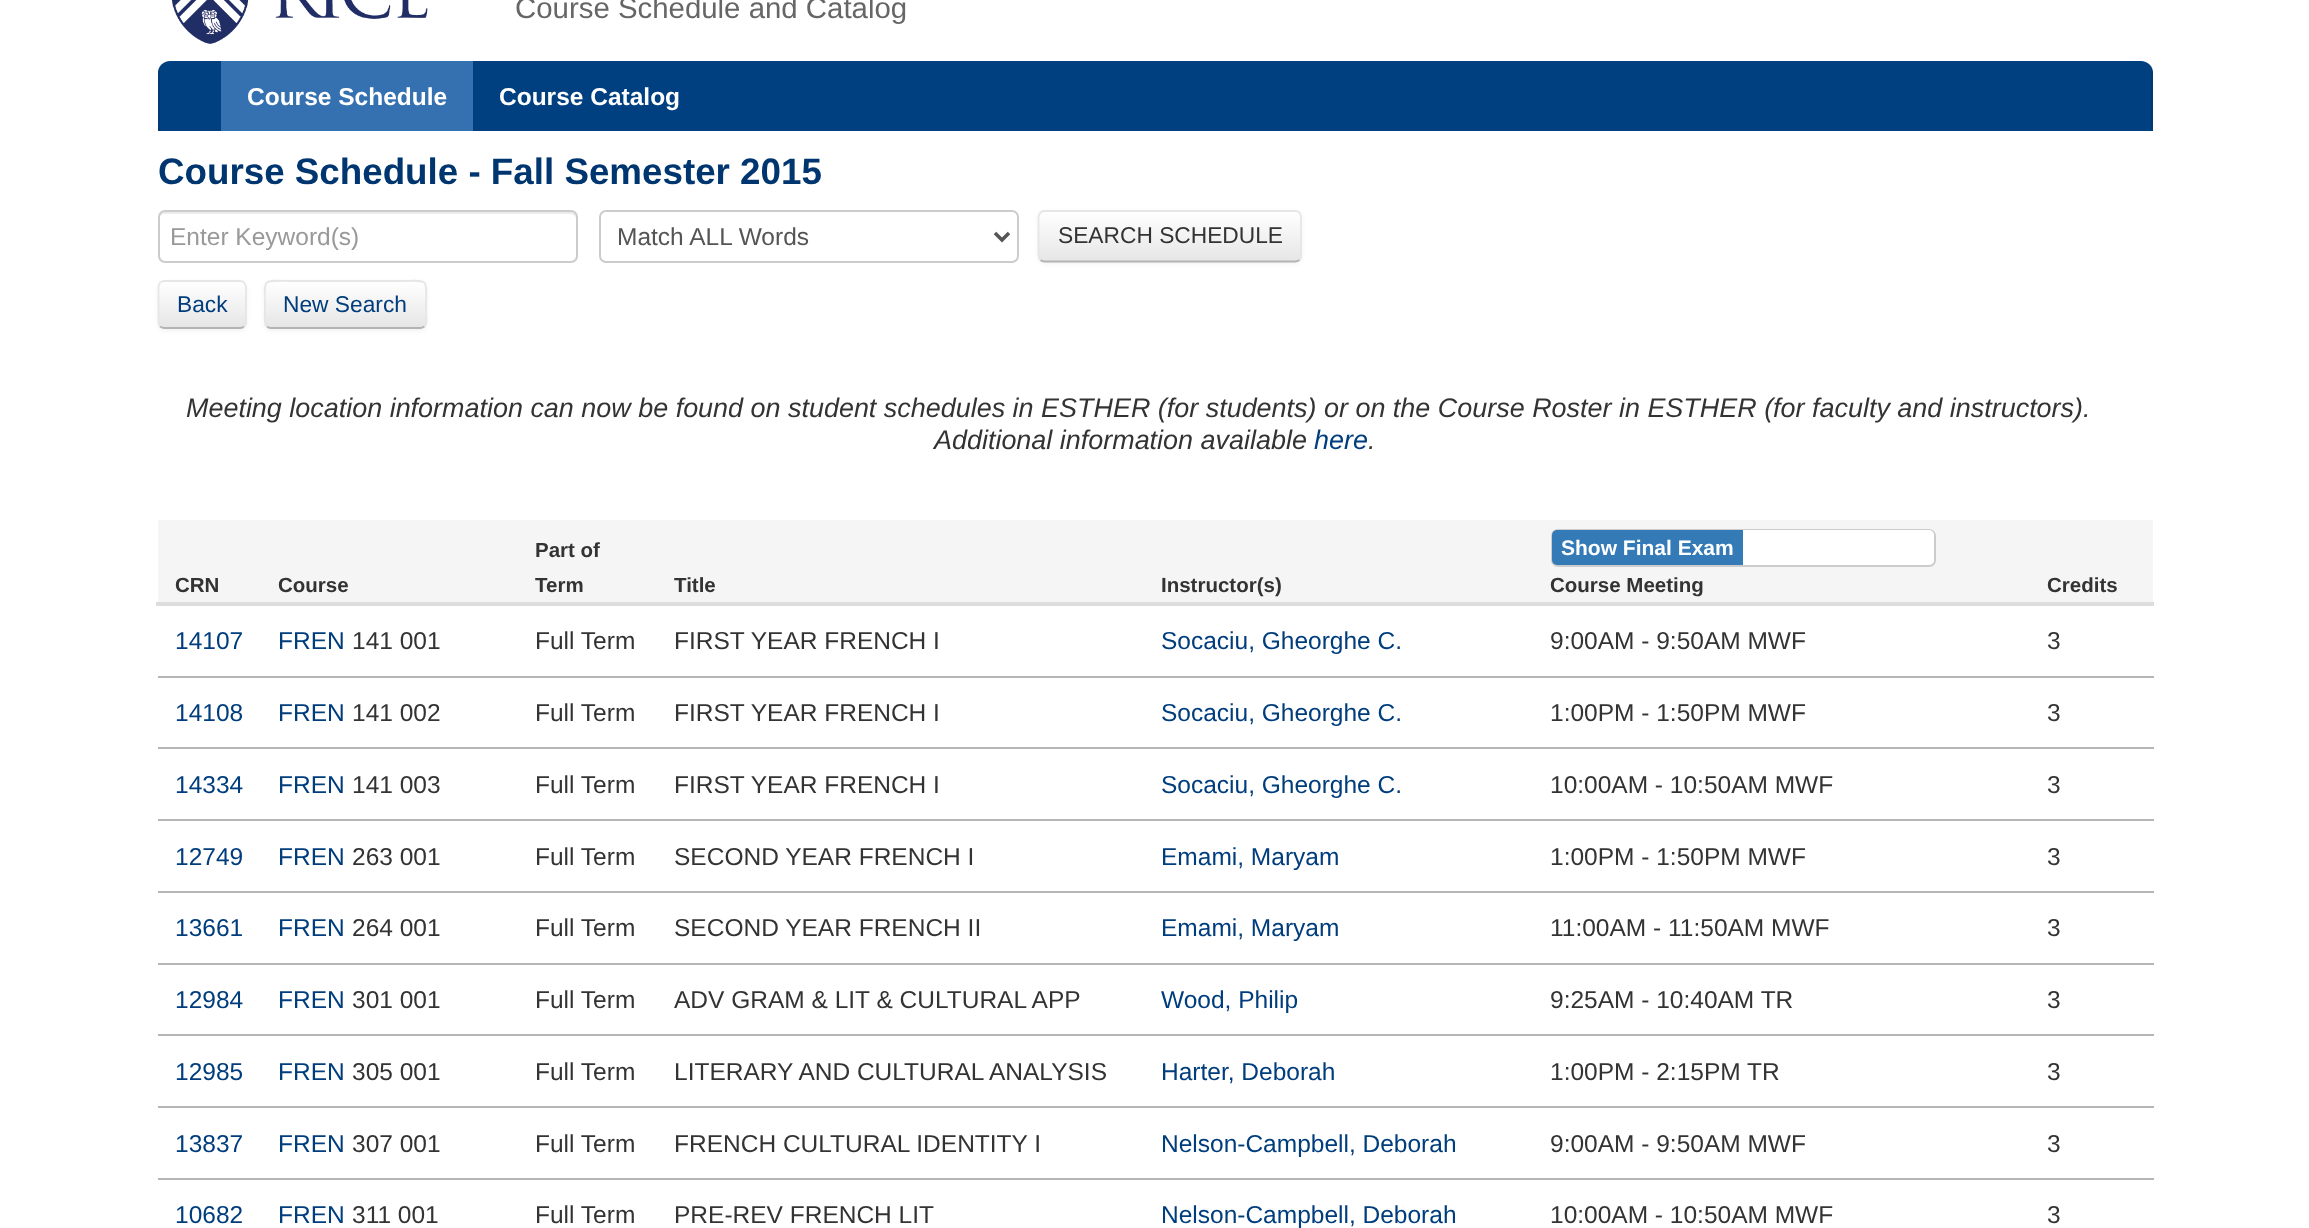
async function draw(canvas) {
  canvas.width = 2309;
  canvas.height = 1228;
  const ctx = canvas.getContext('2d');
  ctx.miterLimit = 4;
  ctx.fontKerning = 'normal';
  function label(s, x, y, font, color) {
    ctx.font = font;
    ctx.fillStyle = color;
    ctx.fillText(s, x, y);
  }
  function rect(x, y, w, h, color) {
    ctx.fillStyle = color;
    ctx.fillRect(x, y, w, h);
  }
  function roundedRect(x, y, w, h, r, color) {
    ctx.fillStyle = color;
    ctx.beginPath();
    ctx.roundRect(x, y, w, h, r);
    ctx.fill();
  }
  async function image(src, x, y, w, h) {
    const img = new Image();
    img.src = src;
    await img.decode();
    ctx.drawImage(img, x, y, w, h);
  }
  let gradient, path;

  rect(0, 0, 2309, 1228, '#fff');
  await image('assets/img1.png', 171, 0, 257, 44);
  label('Course Schedule and Catalog', 515, 18, '29.4px Liberation Sans', '#666');
  ctx.fillStyle = '#004080';
  ctx.beginPath();
  ctx.roundRect(158, 61, 1995, 70, [12, 12, 0, 0]);
  ctx.fill();
  rect(2151, 68, 2, 63, '#0000001a');
  rect(158, 68, 2, 63, '#0000001a');
  rect(221, 61, 252, 70, '#3571b1');
  label('Course Schedule', 247, 105, 'bold 24.5px Liberation Sans', '#fff');
  label('Course Catalog', 499, 105, 'bold 24.5px Liberation Sans', '#fff');
  label('Course Schedule - Fall Semester 2015', 158, 184, 'bold 36.75px Liberation Sans', '#00366f');
  ctx.fillStyle = '#ececec';
  path = new Path2D('M164 214H570C573 214 576 216 576 219V217C576 214 574 212 571 212H164C161 212 159 214 159 217V219C159 216 162 214 164 214Z');
  ctx.fill(path);
  ctx.beginPath();
  ctx.roundRect(159, 211, 418, 51, 6);
  ctx.strokeStyle = '#ccc';
  ctx.lineWidth = 2;
  ctx.stroke();
  ctx.save();
  ctx.beginPath();
  ctx.rect(170, 222, 395, 28);
  ctx.clip();
  label('Enter Keyword(s)', 170, 245, '24.5px Liberation Sans', '#999');
  ctx.restore();
  ctx.beginPath();
  ctx.roundRect(600, 211, 418, 51, 6);
  ctx.stroke();
  path = new Path2D('M995 233L1002 240L1009 233');
  ctx.strokeStyle = '#555';
  ctx.lineWidth = 3.5;
  ctx.stroke(path);
  label('Match ALL Words', 617, 245, '24.5px Liberation Sans', '#555');
  ctx.fillStyle = '#0000000d';
  ctx.filter = 'blur(2px)';
  ctx.beginPath();
  ctx.roundRect(1038, 212, 264, 52, 7);
  ctx.fill();
  ctx.filter = 'none';
  roundedRect(1038, 210, 264, 53, 7, '#f5f5f5');
  ctx.save();
  ctx.beginPath();
  ctx.roundRect(1038, 210, 264, 53, 7);
  ctx.clip();
  gradient = ctx.createLinearGradient(1170, 212, 1170, 261);
  gradient.addColorStop(0, '#fff');
  gradient.addColorStop(1, '#e6e6e6');
  ctx.fillStyle = gradient;
  ctx.fillRect(1038, 212, 264, 49);
  ctx.restore();
  path = new Path2D('M1299.5 260C1298 261 1296.5 261.5 1295 261.5H1045C1043 261.5 1041.5 261 1040.5 260');
  ctx.strokeStyle = '#b3b3b3';
  ctx.lineWidth = 1.8;
  ctx.stroke(path);
  path = new Path2D('M1040.5 260C1039.5 258.5 1038.5 257 1038.5 255.5V217C1038.5 215.5 1039.5 214 1040.5 212.5C1041.5 211.5 1043 211 1045 211H1295C1296.5 211 1298 211.5 1299.5 212.5C1300.5 214 1301 215.5 1301 217V255.5C1301 257 1300.5 258.5 1299.5 260');
  ctx.strokeStyle = '#e6e6e6';
  ctx.stroke(path);
  label('SEARCH SCHEDULE', 1058, 243, '22.75px Liberation Sans', '#333');
  ctx.fillStyle = '#0000000d';
  ctx.filter = 'blur(2px)';
  ctx.beginPath();
  ctx.roundRect(158, 282, 89, 49, 7);
  ctx.fill();
  ctx.filter = 'none';
  ctx.save();
  ctx.beginPath();
  ctx.roundRect(158, 280, 89, 49, 7);
  ctx.clip();
  gradient = ctx.createLinearGradient(202, 282, 202, 327);
  gradient.addColorStop(0, '#fff');
  gradient.addColorStop(1, '#e6e6e6');
  ctx.fillStyle = gradient;
  ctx.fillRect(158, 282, 89, 45);
  ctx.restore();
  path = new Path2D('M244 326.5C243 327.5 241.5 328 240 328H164.5C163 328 161.5 327.5 160 326.5');
  ctx.strokeStyle = '#b3b3b3';
  ctx.stroke(path);
  path = new Path2D('M160 326.5C159 325 158.5 323.5 158.5 322V287C158.5 285.5 159 284 160 282.5C161.5 281.5 163 281 164.5 281H240C241.5 281 243 281.5 244 282.5C245 284 246 285.5 246 287V322C246 323.5 245 325 244 326.5');
  ctx.strokeStyle = '#e6e6e6';
  ctx.stroke(path);
  label('Back', 177, 312, '22.75px Liberation Sans', '#003d7d');
  ctx.fillStyle = '#0000000d';
  ctx.filter = 'blur(2px)';
  ctx.beginPath();
  ctx.roundRect(264, 282, 163, 49, 7);
  ctx.fill();
  ctx.filter = 'none';
  roundedRect(264, 280, 163, 49, 7, '#f5f5f5');
  ctx.save();
  ctx.beginPath();
  ctx.roundRect(264, 280, 163, 49, 7);
  ctx.clip();
  gradient = ctx.createLinearGradient(346, 282, 346, 327);
  gradient.addColorStop(0, '#fff');
  gradient.addColorStop(1, '#e6e6e6');
  ctx.fillStyle = gradient;
  ctx.fillRect(264, 282, 163, 45);
  ctx.restore();
  path = new Path2D('M424.5 326.5C423 327.5 421.5 328 420 328H271C269.5 328 268 327.5 267 326.5');
  ctx.strokeStyle = '#b3b3b3';
  ctx.stroke(path);
  path = new Path2D('M267 326.5C263.5 323 265 314 265 310.5C265 275.5 259.5 281 296 281H395C431.5 281 426 275.5 426 310.5C426 314 428 323 424.5 326.5');
  ctx.strokeStyle = '#e6e6e6';
  ctx.stroke(path);
  label('New Search', 283, 312, '22.75px Liberation Sans', '#003d7d');
  label('Meeting location information can now be found on student schedules in ESTHER (for students) or on the Course Roster in ESTHER (for faculty and instructors).', 186, 417, 'italic 26.95px Liberation Sans', '#333');
  label('Additional information available', 934, 449, 'italic 26.95px Liberation Sans', '#333');
  label('here', 1314, 449, 'italic 26.95px Liberation Sans', '#003d7d');
  label('.', 1368, 449, 'italic 26.95px Liberation Sans', '#333');
  rect(158, 520, 1995, 82, '#f5f5f5');
  label('CRN', 175, 592, 'bold 20.5px Liberation Sans', '#333');
  label('Course', 278, 592, 'bold 20.5px Liberation Sans', '#333');
  label('Part of', 535, 557, 'bold 20.5px Liberation Sans', '#333');
  label('Term', 535, 592, 'bold 20.5px Liberation Sans', '#333');
  label('Title', 674, 592, 'bold 20.5px Liberation Sans', '#333');
  label('Instructor(s)', 1161, 592, 'bold 20.5px Liberation Sans', '#333');
  ctx.beginPath();
  ctx.roundRect(1552, 530, 383, 36, 6);
  ctx.strokeStyle = '#ccc';
  ctx.lineWidth = 2;
  ctx.stroke();
  ctx.fillStyle = '#337ab7';
  ctx.beginPath();
  ctx.roundRect(1552, 530, 191, 35, [5, 0, 0, 5]);
  ctx.fill();
  label('Show Final Exam', 1561, 555, 'bold 21px Liberation Sans', '#fff');
  ctx.beginPath();
  ctx.roundRect(1743, 530, 191, 35, [0, 5, 5, 0]);
  ctx.fill();
  label('Course Meeting', 1550, 592, 'bold 20.5px Liberation Sans', '#333');
  rect(156, 602, 1998, 4, '#ddd');
  label('Credits', 2047, 592, 'bold 20.5px Liberation Sans', '#333');
  rect(158, 676, 1996, 2, '#b6b6b6');
  label('14107', 175, 649, '24.5px Liberation Sans', '#003d7d');
  label('FREN', 278, 649, '24.5px Liberation Sans', '#003d7d');
  label('141 001', 352, 649, '24.5px Liberation Sans', '#333');
  label('Full Term', 535, 649, '24.5px Liberation Sans', '#333');
  label('FIRST YEAR FRENCH I', 674, 649, '24.5px Liberation Sans', '#333');
  label('Socaciu, Gheorghe C.', 1161, 649, '24.5px Liberation Sans', '#003d7d');
  label('9:00AM - 9:50AM MWF', 1550, 649, '24.5px Liberation Sans', '#333');
  label('3', 2047, 649, '24.5px Liberation Sans', '#333');
  rect(158, 747, 1996, 2, '#b6b6b6');
  label('14108', 175, 721, '24.5px Liberation Sans', '#003d7d');
  label('FREN', 278, 721, '24.5px Liberation Sans', '#003d7d');
  label('141 002', 352, 721, '24.5px Liberation Sans', '#333');
  label('Full Term', 535, 721, '24.5px Liberation Sans', '#333');
  label('FIRST YEAR FRENCH I', 674, 721, '24.5px Liberation Sans', '#333');
  label('Socaciu, Gheorghe C.', 1161, 721, '24.5px Liberation Sans', '#003d7d');
  label('1:00PM - 1:50PM MWF', 1550, 721, '24.5px Liberation Sans', '#333');
  label('3', 2047, 721, '24.5px Liberation Sans', '#333');
  rect(158, 819, 1996, 2, '#b6b6b6');
  label('14334', 175, 793, '24.5px Liberation Sans', '#003d7d');
  label('FREN', 278, 793, '24.5px Liberation Sans', '#003d7d');
  label('141 003', 352, 793, '24.5px Liberation Sans', '#333');
  label('Full Term', 535, 793, '24.5px Liberation Sans', '#333');
  label('FIRST YEAR FRENCH I', 674, 793, '24.5px Liberation Sans', '#333');
  label('Socaciu, Gheorghe C.', 1161, 793, '24.5px Liberation Sans', '#003d7d');
  label('10:00AM - 10:50AM MWF', 1550, 793, '24.5px Liberation Sans', '#333');
  label('3', 2047, 793, '24.5px Liberation Sans', '#333');
  rect(158, 891, 1996, 2, '#b6b6b6');
  label('12749', 175, 865, '24.5px Liberation Sans', '#003d7d');
  label('FREN', 278, 865, '24.5px Liberation Sans', '#003d7d');
  label('263 001', 352, 865, '24.5px Liberation Sans', '#333');
  label('Full Term', 535, 865, '24.5px Liberation Sans', '#333');
  label('SECOND YEAR FRENCH I', 674, 865, '24.5px Liberation Sans', '#333');
  label('Emami, Maryam', 1161, 865, '24.5px Liberation Sans', '#003d7d');
  label('1:00PM - 1:50PM MWF', 1550, 865, '24.5px Liberation Sans', '#333');
  label('3', 2047, 865, '24.5px Liberation Sans', '#333');
  rect(158, 963, 1996, 2, '#b6b6b6');
  label('13661', 175, 936, '24.5px Liberation Sans', '#003d7d');
  label('FREN', 278, 936, '24.5px Liberation Sans', '#003d7d');
  label('264 001', 352, 936, '24.5px Liberation Sans', '#333');
  label('Full Term', 535, 936, '24.5px Liberation Sans', '#333');
  label('SECOND YEAR FRENCH II', 674, 936, '24.5px Liberation Sans', '#333');
  label('Emami, Maryam', 1161, 936, '24.5px Liberation Sans', '#003d7d');
  label('11:00AM - 11:50AM MWF', 1550, 936, '24.5px Liberation Sans', '#333');
  label('3', 2047, 936, '24.5px Liberation Sans', '#333');
  rect(158, 1034, 1996, 2, '#b6b6b6');
  label('12984', 175, 1008, '24.5px Liberation Sans', '#003d7d');
  label('FREN', 278, 1008, '24.5px Liberation Sans', '#003d7d');
  label('301 001', 352, 1008, '24.5px Liberation Sans', '#333');
  label('Full Term', 535, 1008, '24.5px Liberation Sans', '#333');
  label('ADV GRAM & LIT & CULTURAL APP', 674, 1008, '24.5px Liberation Sans', '#333');
  label('Wood, Philip', 1161, 1008, '24.5px Liberation Sans', '#003d7d');
  label('9:25AM - 10:40AM TR', 1550, 1008, '24.5px Liberation Sans', '#333');
  label('3', 2047, 1008, '24.5px Liberation Sans', '#333');
  rect(158, 1106, 1996, 2, '#b6b6b6');
  label('12985', 175, 1080, '24.5px Liberation Sans', '#003d7d');
  label('FREN', 278, 1080, '24.5px Liberation Sans', '#003d7d');
  label('305 001', 352, 1080, '24.5px Liberation Sans', '#333');
  label('Full Term', 535, 1080, '24.5px Liberation Sans', '#333');
  label('LITERARY AND CULTURAL ANALYSIS', 674, 1080, '24.5px Liberation Sans', '#333');
  label('Harter, Deborah', 1161, 1080, '24.5px Liberation Sans', '#003d7d');
  label('1:00PM - 2:15PM TR', 1550, 1080, '24.5px Liberation Sans', '#333');
  label('3', 2047, 1080, '24.5px Liberation Sans', '#333');
  rect(158, 1178, 1996, 2, '#b6b6b6');
  label('13837', 175, 1152, '24.5px Liberation Sans', '#003d7d');
  label('FREN', 278, 1152, '24.5px Liberation Sans', '#003d7d');
  label('307 001', 352, 1152, '24.5px Liberation Sans', '#333');
  label('Full Term', 535, 1152, '24.5px Liberation Sans', '#333');
  label('FRENCH CULTURAL IDENTITY I', 674, 1152, '24.5px Liberation Sans', '#333');
  label('Nelson-Campbell, Deborah', 1161, 1152, '24.5px Liberation Sans', '#003d7d');
  label('9:00AM - 9:50AM MWF', 1550, 1152, '24.5px Liberation Sans', '#333');
  label('3', 2047, 1152, '24.5px Liberation Sans', '#333');
  label('10682', 175, 1223, '24.5px Liberation Sans', '#003d7d');
  label('FREN', 278, 1223, '24.5px Liberation Sans', '#003d7d');
  label('311 001', 352, 1223, '24.5px Liberation Sans', '#333');
  label('Full Term', 535, 1223, '24.5px Liberation Sans', '#333');
  label('PRE-REV FRENCH LIT', 674, 1223, '24.5px Liberation Sans', '#333');
  label('Nelson-Campbell, Deborah', 1161, 1223, '24.5px Liberation Sans', '#003d7d');
  label('10:00AM - 10:50AM MWF', 1550, 1223, '24.5px Liberation Sans', '#333');
  label('3', 2047, 1223, '24.5px Liberation Sans', '#333');
}

draw(document.querySelector('canvas'));
